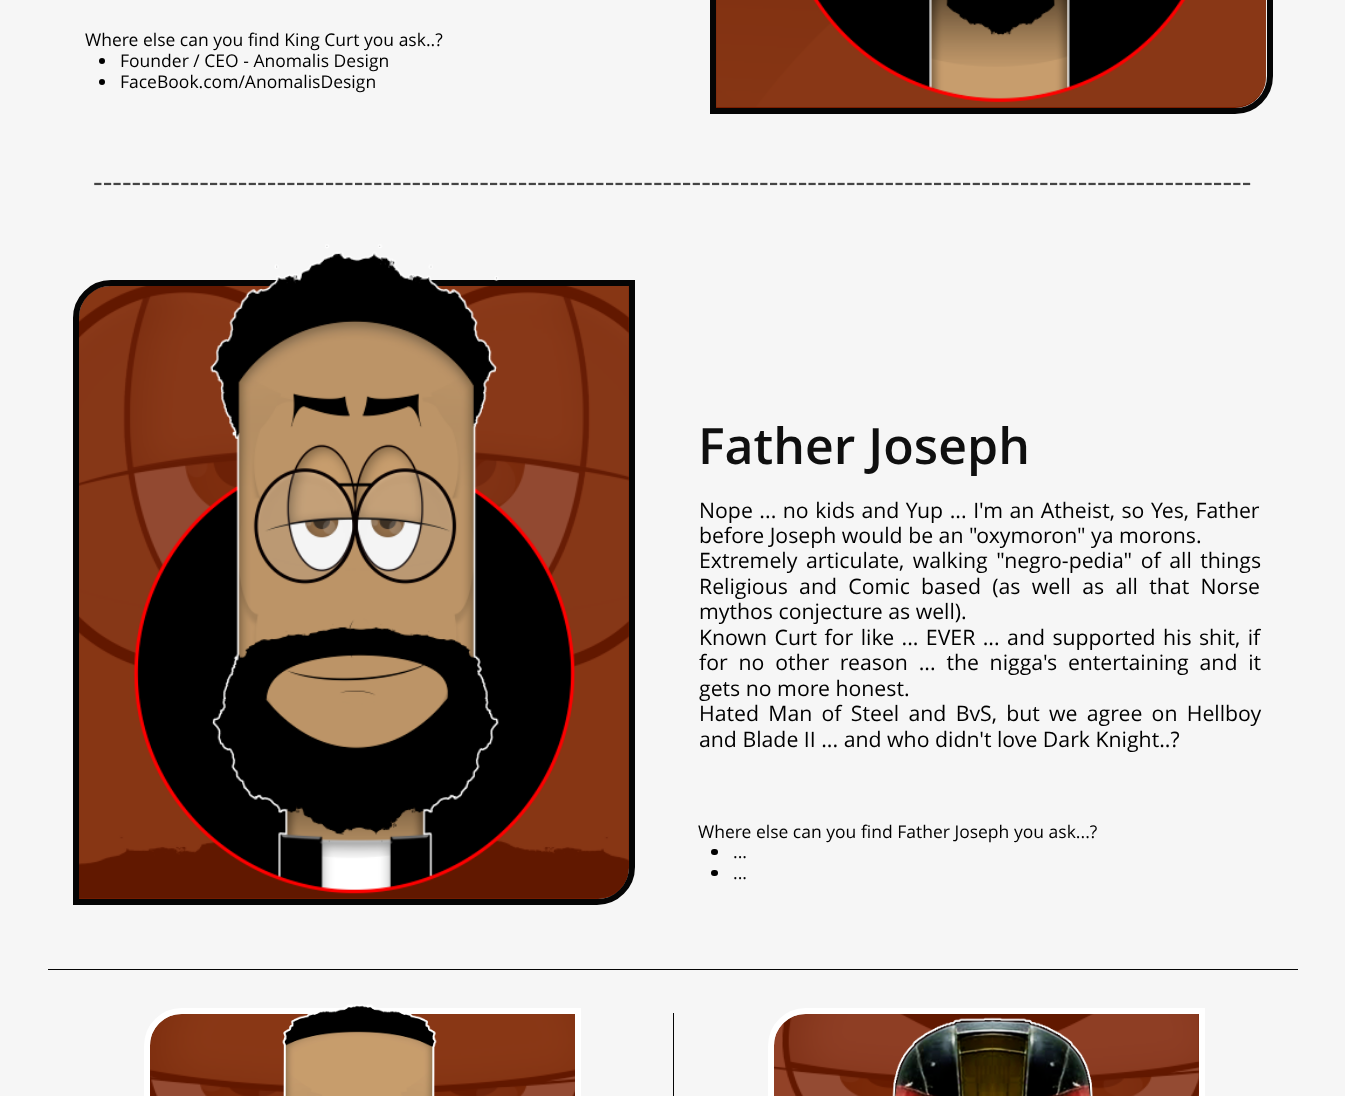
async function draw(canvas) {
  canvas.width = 1345;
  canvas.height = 1096;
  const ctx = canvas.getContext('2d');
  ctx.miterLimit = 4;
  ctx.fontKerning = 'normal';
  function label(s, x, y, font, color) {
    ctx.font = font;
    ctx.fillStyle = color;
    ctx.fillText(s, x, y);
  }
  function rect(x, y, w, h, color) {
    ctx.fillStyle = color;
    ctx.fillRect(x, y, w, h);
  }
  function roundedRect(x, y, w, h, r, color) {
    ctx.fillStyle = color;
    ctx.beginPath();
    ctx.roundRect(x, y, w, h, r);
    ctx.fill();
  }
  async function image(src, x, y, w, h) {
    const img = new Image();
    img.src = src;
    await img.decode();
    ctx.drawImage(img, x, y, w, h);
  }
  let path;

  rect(0, 0, 1345, 1096, '#f6f6f6');
  ctx.fillStyle = '#7a1e00';
  path = new Path2D('M747-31H1266V77C1266 94 1252 108 1235 108H716V0C716-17 730-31 747-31Z');
  ctx.fill(path);
  await image('assets/img1.png', 716, 0, 551, 107);
  path = new Path2D('M748-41H1270V76C1270 95.5 1254.5 111 1235 111H713V-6C713-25.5 728.5-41 748-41Z');
  ctx.strokeStyle = '#050505';
  ctx.lineWidth = 6;
  ctx.stroke(path);
  label('Where else can you find King Curt you ask..?', 85, 46, '17.5px Open Sans', '#000');
  ctx.beginPath();
  ctx.arc(102, 61, 3, 0, 2 * Math.PI);
  ctx.fill();
  label('Founder / CEO - Anomalis Design', 120, 67, '17.5px Open Sans', '#000');
  ctx.beginPath();
  ctx.arc(102, 82, 3, 0, 2 * Math.PI);
  ctx.fill();
  label('FaceBook.com/AnomalisDesign', 120, 88, '17.5px Open Sans', '#000');
  await image('assets/img2.png', 813, 0, 373, 103);
  label('------------------------------------------------------------------------------------------------------------------------', 93, 192, '30px Open Sans', '#444');
  ctx.fillStyle = '#7a1e00';
  ctx.beginPath();
  ctx.roundRect(79, 286, 550, 613, [31, 0, 31, 0]);
  ctx.fill();
  await image('assets/img4.png', 79, 286, 550, 613);
  ctx.beginPath();
  ctx.roundRect(76, 283, 556, 619, [35, 0, 35, 0]);
  ctx.stroke();
  await image('assets/img3.png', 133, 244, 443, 650);
  label('Father Joseph', 698, 464, '600 50px Open Sans', '#0f0f0f');
  ctx.wordSpacing = '1px';
  label('Nope ... no kids and Yup ... I\'m an Atheist, so Yes, Father', 699, 518, '21.25px Open Sans', '#000');
  ctx.wordSpacing = '0px';
  label('before Joseph would be an "oxymoron" ya morons.', 699, 543, '21.25px Open Sans', '#000');
  ctx.wordSpacing = '3px';
  label('Extremely articulate, walking "negro-pedia" of all things', 699, 568, '21.25px Open Sans', '#000');
  ctx.wordSpacing = '5.75px';
  label('Religious and Comic based (as well as all that Norse', 699, 594, '21.25px Open Sans', '#000');
  ctx.wordSpacing = '0px';
  label('mythos conjecture as well).', 699, 619, '21.25px Open Sans', '#000');
  ctx.wordSpacing = '1.9px';
  label('Known Curt for like ... EVER ... and supported his shit, if', 699, 645, '21.25px Open Sans', '#000');
  ctx.wordSpacing = '5.25px';
  label('for no other reason ... the nigga\'s entertaining and it', 699, 670, '21.25px Open Sans', '#000');
  ctx.wordSpacing = '0px';
  label('gets no more honest.', 699, 696, '21.25px Open Sans', '#000');
  ctx.wordSpacing = '3.75px';
  label('Hated Man of Steel and BvS, but we agree on Hellboy', 699, 721, '21.25px Open Sans', '#000');
  ctx.wordSpacing = '0px';
  label('and Blade II ... and who didn\'t love Dark Knight..?', 699, 747, '21.25px Open Sans', '#000');
  label('Where else can you find Father Joseph you ask...?', 698, 838, '17.5px Open Sans', '#000');
  roundedRect(711, 849, 7, 6, 3, '#000');
  label('...', 733, 858, '17.5px Open Sans', '#000');
  roundedRect(711, 870, 7, 6, 3, '#000');
  label('...', 733, 879, '17.5px Open Sans', '#000');
  rect(48, 969, 1250, 1, '#050505');
  ctx.fillStyle = '#7a1e00';
  path = new Path2D('M181 1014H575V1096C575 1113 561 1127 544 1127H150V1045C150 1028 164 1014 181 1014Z');
  ctx.fill(path);
  await image('assets/img6.png', 150, 1014, 425, 82);
  path = new Path2D('M182 1011H578V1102C578 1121.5 562.5 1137 543 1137H147V1046C147 1026.5 162.5 1011 182 1011Z');
  ctx.strokeStyle = '#fff';
  ctx.stroke(path);
  await image('assets/img5.png', 282, 1004, 155, 92);
  rect(673, 1013, 1, 83, '#050505');
  ctx.fillStyle = '#7a1e00';
  path = new Path2D('M805 1014H1199V1096C1199 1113 1185 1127 1168 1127H774V1045C774 1028 788 1014 805 1014Z');
  ctx.fill(path);
  await image('assets/img7.png', 774, 1014, 425, 82);
  path = new Path2D('M806 1011H1202V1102C1202 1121.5 1186.5 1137 1167 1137H771V1046C771 1026.5 786.5 1011 806 1011Z');
  ctx.stroke(path);
  await image('assets/img8.png', 892, 1017, 201, 79);
}

draw(document.querySelector('canvas'));
